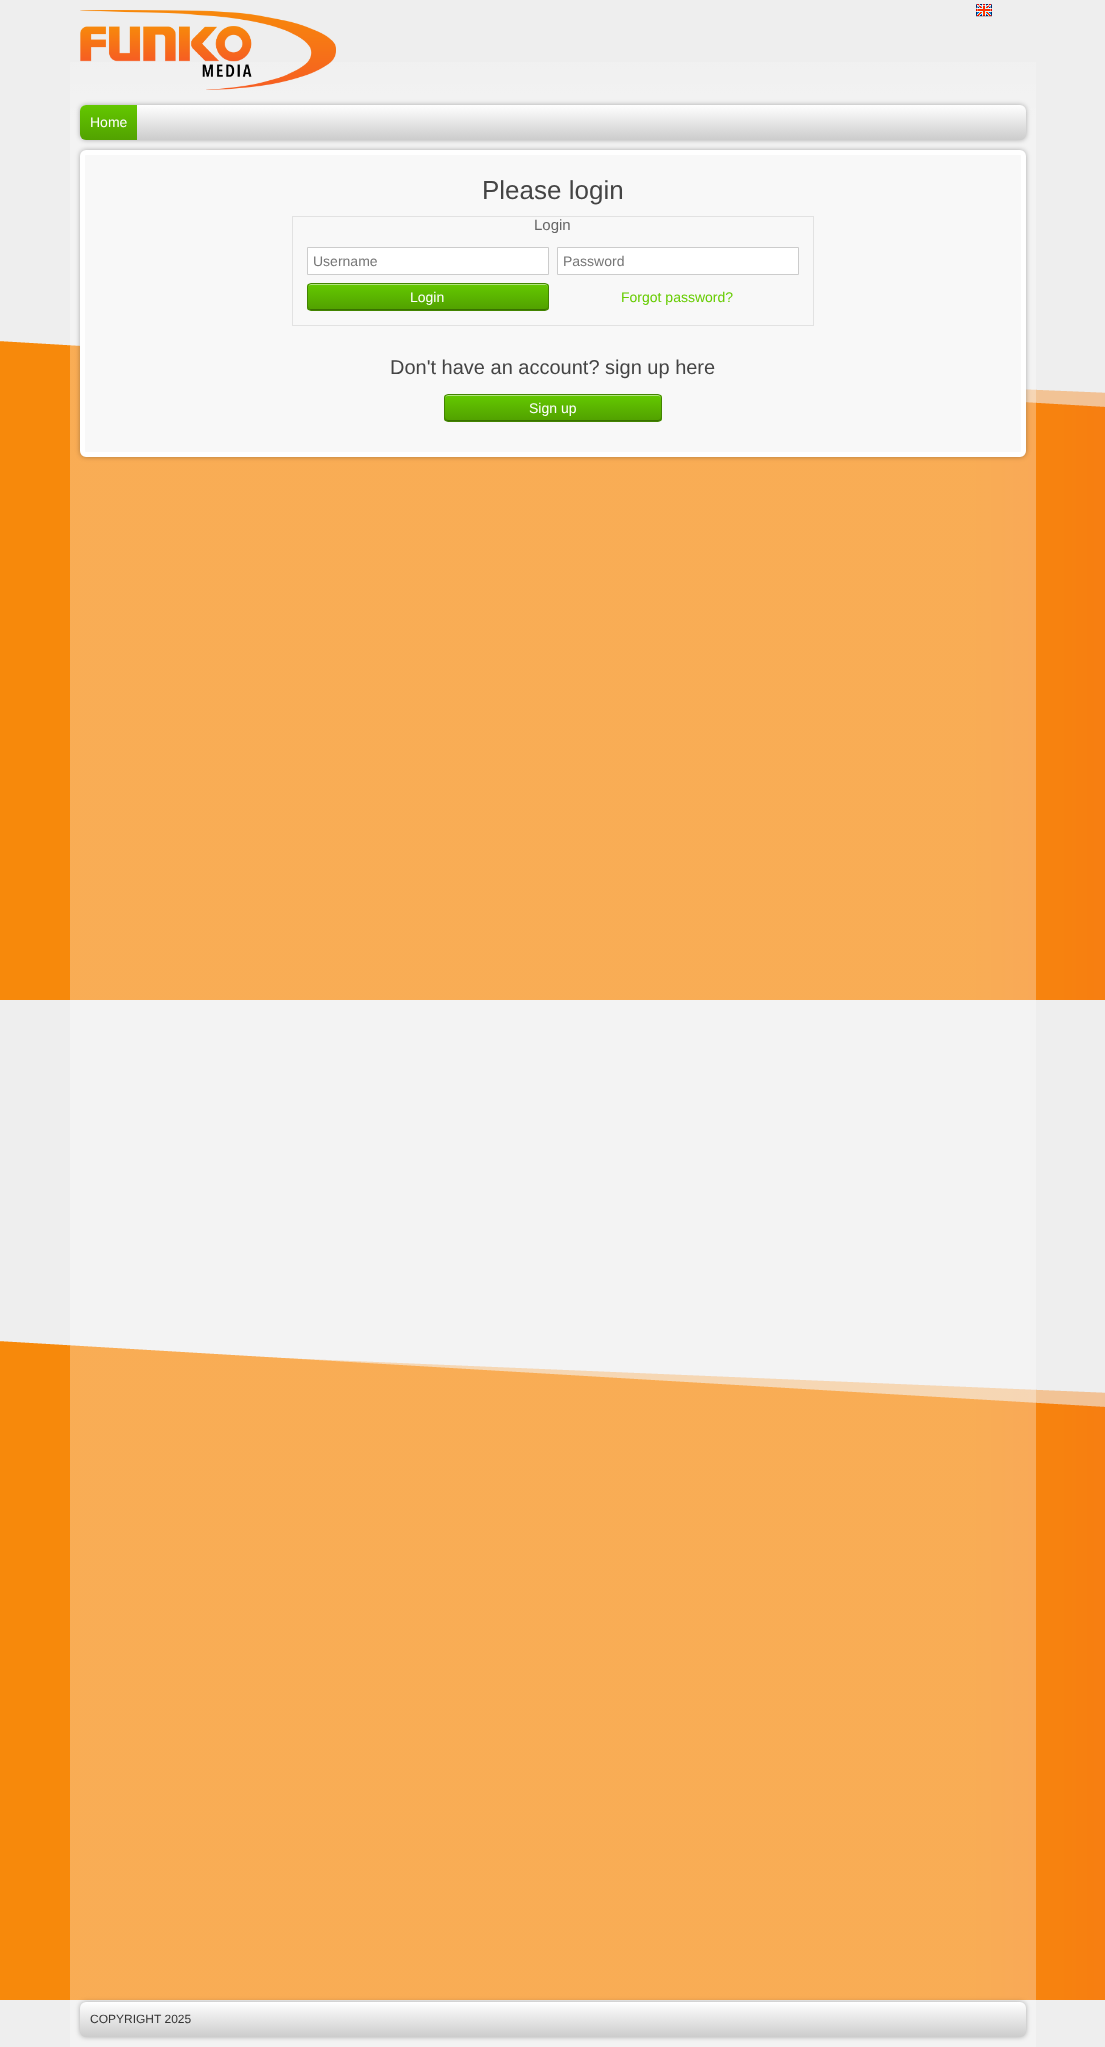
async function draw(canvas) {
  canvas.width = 1105;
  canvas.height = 2047;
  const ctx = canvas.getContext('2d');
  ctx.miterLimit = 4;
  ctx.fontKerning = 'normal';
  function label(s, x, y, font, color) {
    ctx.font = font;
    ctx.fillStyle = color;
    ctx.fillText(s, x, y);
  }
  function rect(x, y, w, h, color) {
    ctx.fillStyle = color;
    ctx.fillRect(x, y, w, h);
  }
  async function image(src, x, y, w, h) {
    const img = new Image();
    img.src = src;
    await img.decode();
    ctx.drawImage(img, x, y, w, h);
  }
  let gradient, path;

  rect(0, 0, 1105, 2047, '#eee');
  await image('assets/img1.png', 0, 341, 1105, 1659);
  gradient = ctx.createLinearGradient(553, 0, 553, 2047);
  gradient.addColorStop(0, '#ffffff00');
  gradient.addColorStop(0.06, '#ffffff4d');
  ctx.fillStyle = gradient;
  ctx.fillRect(70, 62, 966, 1985);
  await image('assets/img2.png', 80, 10, 256, 80);
  await image('assets/img3.png', 976, 4, 16, 13);
  ctx.fillStyle = '#0000004d';
  ctx.filter = 'blur(2.5px)';
  ctx.beginPath();
  ctx.roundRect(80, 105, 946, 35, 6);
  ctx.fill();
  ctx.filter = 'none';
  gradient = ctx.createLinearGradient(553, 105, 553, 140);
  gradient.addColorStop(0, '#fff');
  gradient.addColorStop(1, '#ccc');
  ctx.fillStyle = gradient;
  ctx.beginPath();
  ctx.roundRect(80, 105, 946, 35, 6);
  ctx.fill();
  gradient = ctx.createLinearGradient(109, 105, 109, 140);
  gradient.addColorStop(0, '#63c700');
  gradient.addColorStop(1, '#52a200');
  ctx.fillStyle = gradient;
  ctx.beginPath();
  ctx.roundRect(80, 105, 57, 35, [6, 0, 0, 6]);
  ctx.fill();
  label('Home', 90, 127, '14px Liberation Sans', '#fff');
  ctx.fillStyle = '#0000004d';
  ctx.filter = 'blur(2.5px)';
  ctx.beginPath();
  ctx.roundRect(80, 150, 946, 307, 6);
  ctx.fill();
  ctx.filter = 'none';
  ctx.fillStyle = '#f8f8f8';
  ctx.beginPath();
  ctx.roundRect(82.5, 152.5, 941, 302, 3.5);
  ctx.fill();
  ctx.strokeStyle = '#fff';
  ctx.lineWidth = 5;
  ctx.stroke();
  label('Please login', 482, 199, '26px Liberation Sans', '#444');
  ctx.strokeStyle = '#e2e2e2';
  ctx.lineWidth = 1;
  ctx.strokeRect(292.5, 216.5, 521, 109);
  label('Login', 534, 230, '15px Liberation Sans', '#666');
  ctx.fillStyle = '#fff';
  ctx.beginPath();
  ctx.rect(307.5, 247.5, 241, 27);
  ctx.fill();
  ctx.strokeStyle = '#ccc';
  ctx.stroke();
  label('Username', 313, 266, '14px Liberation Sans', '#757575');
  ctx.fillStyle = '#fff';
  ctx.beginPath();
  ctx.rect(557.5, 247.5, 241, 27);
  ctx.fill();
  ctx.stroke();
  label('Password', 563, 266, '14px Liberation Sans', '#757575');
  ctx.save();
  ctx.beginPath();
  ctx.roundRect(307, 283, 242, 28, 4);
  ctx.clip();
  gradient = ctx.createLinearGradient(428, 284, 428, 310);
  gradient.addColorStop(0, '#64c900');
  gradient.addColorStop(1, '#51a000');
  ctx.fillStyle = gradient;
  ctx.fillRect(307, 284, 242, 26);
  ctx.restore();
  ctx.fillStyle = '#397100';
  path = new Path2D('M308 306C308 308 309 310 311 310H545C547 310 548 308 548 306C548 308 547 309 545 309H310L308 308Z');
  ctx.fill(path);
  ctx.fillStyle = '#b2e480';
  path = new Path2D('M311 285H546L548 286V288C548 286 547 284 545 284H311C309 284 308 286 308 288C308 286 309 285 311 285Z');
  ctx.fill(path);
  ctx.beginPath();
  ctx.roundRect(307.5, 283.5, 241, 27, 3.5);
  ctx.strokeStyle = '#428400';
  ctx.stroke();
  label('Login', 410, 302, '14px Liberation Sans', '#fff');
  label('Forgot password?', 621, 302, '14px Liberation Sans', '#6c0');
  label('Don\'t have an account? sign up here', 390, 374, '20px Liberation Sans', '#444');
  ctx.save();
  ctx.beginPath();
  ctx.roundRect(444, 394, 218, 28, 4);
  ctx.clip();
  gradient = ctx.createLinearGradient(553, 395, 553, 421);
  gradient.addColorStop(0, '#64c900');
  gradient.addColorStop(1, '#51a000');
  ctx.fillStyle = gradient;
  ctx.fillRect(444, 395, 218, 26);
  ctx.restore();
  ctx.fillStyle = '#397100';
  path = new Path2D('M445 417V418C445 420 446 421 448 421H658C660 421 661 420 661 418V417C661 419 660 420 658 420H448C446 420 445 419 445 417Z');
  ctx.fill(path);
  ctx.fillStyle = '#b1e380';
  path = new Path2D('M448 396H658C660 396 661 397 661 399V398C661 396 660 395 658 395H448C446 395 445 396 445 398V399C445 397 446 396 448 396Z');
  ctx.fill(path);
  ctx.beginPath();
  ctx.roundRect(444.5, 394.5, 217, 27, 3.5);
  ctx.stroke();
  label('Sign up', 529, 413, '14px Liberation Sans', '#fff');
  ctx.fillStyle = '#0000004d';
  ctx.filter = 'blur(2.5px)';
  ctx.beginPath();
  ctx.roundRect(80, 2002, 946, 35, 6);
  ctx.fill();
  ctx.filter = 'none';
  gradient = ctx.createLinearGradient(553, 2002, 553, 2037);
  gradient.addColorStop(0, '#fff');
  gradient.addColorStop(1, '#ccc');
  ctx.fillStyle = gradient;
  ctx.beginPath();
  ctx.roundRect(80, 2002, 946, 35, 6);
  ctx.fill();
  label('COPYRIGHT 2025', 90, 2023, '12px Liberation Sans', '#333');
}

draw(document.querySelector('canvas'));
